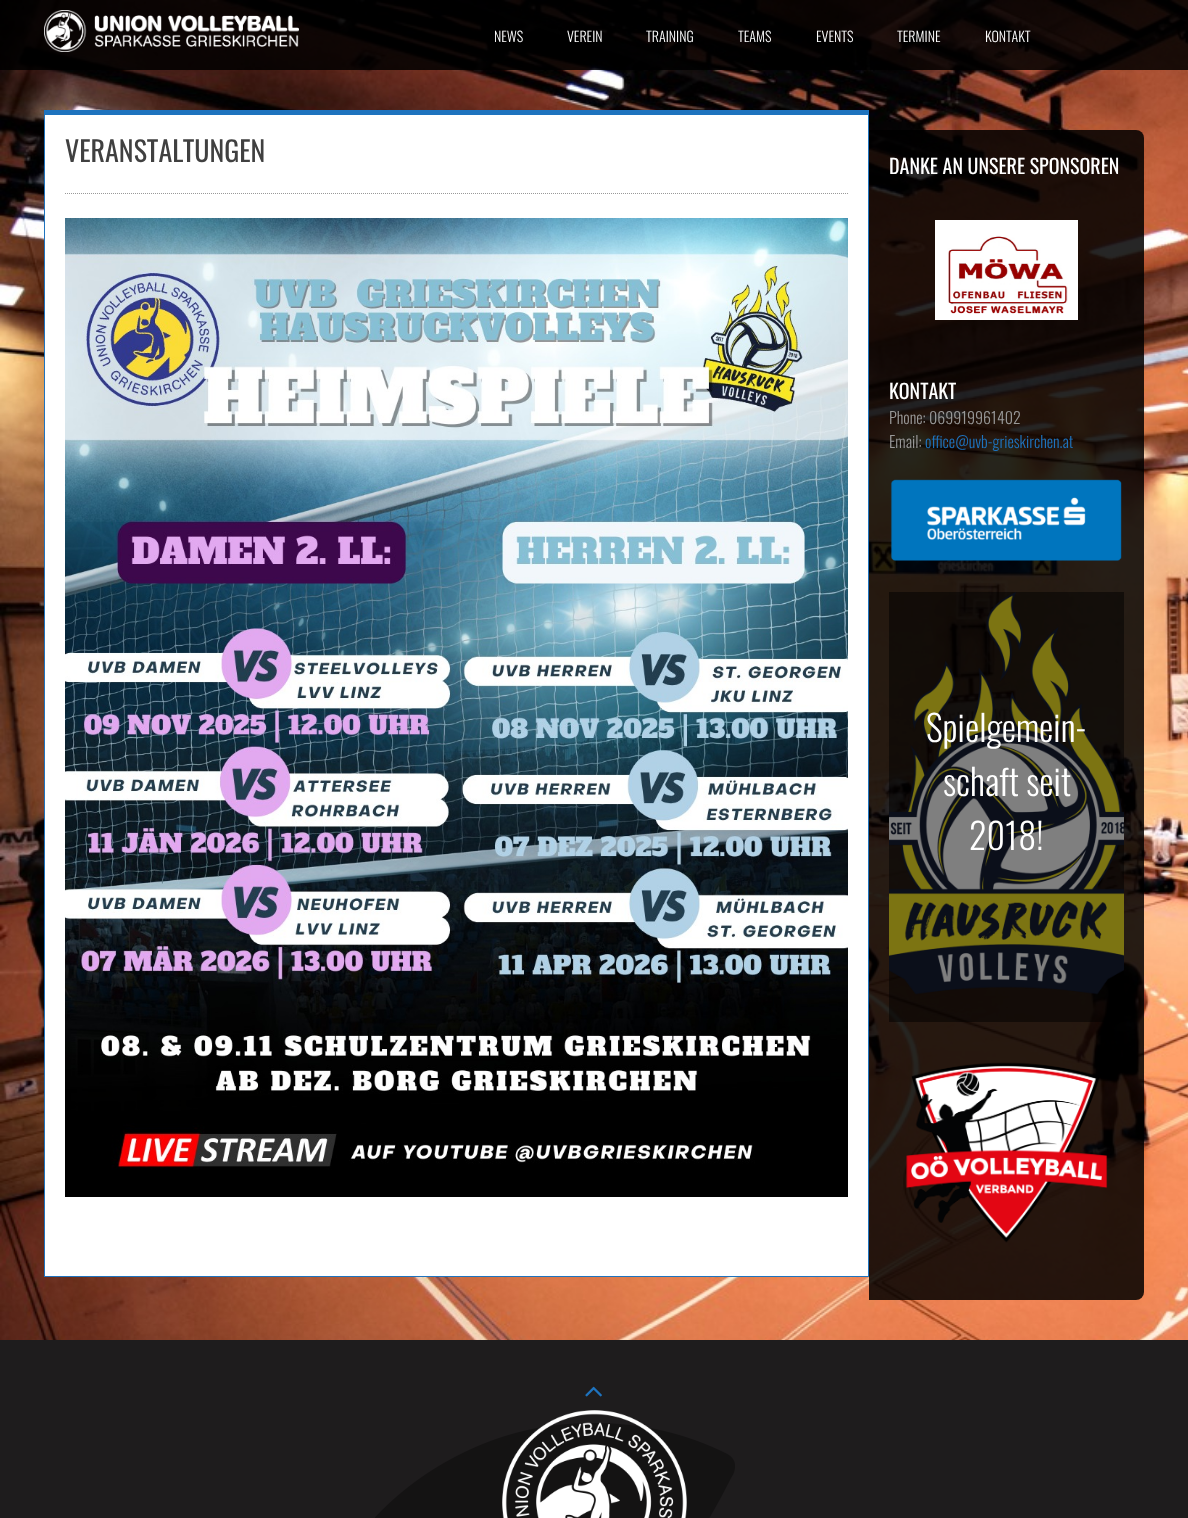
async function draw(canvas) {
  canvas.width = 1188;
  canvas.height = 1518;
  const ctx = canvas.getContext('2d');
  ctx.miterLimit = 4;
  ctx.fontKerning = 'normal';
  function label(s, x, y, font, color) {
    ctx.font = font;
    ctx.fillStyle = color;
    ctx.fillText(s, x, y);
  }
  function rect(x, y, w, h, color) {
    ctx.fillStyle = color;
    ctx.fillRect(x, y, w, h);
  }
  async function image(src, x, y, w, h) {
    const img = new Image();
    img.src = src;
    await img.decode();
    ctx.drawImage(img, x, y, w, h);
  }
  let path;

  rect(0, 0, 1188, 1518, '#fff');
  await image('assets/img1.png', 0, 0, 1188, 1340);
  rect(0, 0, 1188, 70, '#000000d9');
  await image('assets/img2.png', 44, 10, 255, 42);
  label('NEWS', 494, 42, '300 14px Oswald', '#fff');
  label('VEREIN', 567, 42, '300 14px Oswald', '#fff');
  label('TRAINING', 646, 42, '300 14px Oswald', '#fff');
  label('TEAMS', 738, 42, '300 14px Oswald', '#fff');
  label('EVENTS', 816, 42, '300 14px Oswald', '#fff');
  label('TERMINE', 897, 42, '300 14px Oswald', '#fff');
  label('KONTAKT', 985, 42, '300 14px Oswald', '#fff');
  rect(45, 115, 823, 1161, '#fff');
  rect(44, 110, 825, 5, '#1e73be');
  rect(868, 110, 1, 1167, '#1e73be');
  rect(44, 1276, 825, 1, '#1e73be');
  rect(44, 110, 1, 1167, '#1e73be');
  path = new Path2D('M65 193.5H848');
  ctx.strokeStyle = '#999';
  ctx.setLineDash([1, 1]);
  ctx.stroke(path);
  label('VERANSTALTUNGEN', 65, 162, '28px Oswald', '#404040');
  await image('assets/img3.png', 65, 218, 783, 979);
  ctx.fillStyle = '#000000d9';
  ctx.beginPath();
  ctx.roundRect(869, 130, 275, 1170, [0, 8, 8, 0]);
  ctx.fill();
  label('DANKE AN UNSERE SPONSOREN', 889, 174, '20px Oswald', '#fff');
  await image('assets/img4.png', 935, 220, 143, 100);
  label('KONTAKT', 889, 399, '20px Oswald', '#fff');
  label('Phone: 069919961402', 889, 424, '300 16px Oswald', '#999');
  label('Email:', 889, 448, '300 16px Oswald', '#999');
  label('office@uvb-grieskirchen.at', 925, 448, '300 16px Oswald', '#1e73be');
  await image('assets/img5.png', 890, 479, 232, 82);
  await image('assets/img6.png', 889, 592, 235, 403);
  rect(889, 592, 235, 430, '#00000080');
  label('Spielgemein-', 926, 742, '300 36px Oswald', '#fff');
  label('schaft seit', 943, 796, '300 36px Oswald', '#fff');
  label('2018!', 969, 850, '300 36px Oswald', '#fff');
  await image('assets/img7.png', 906, 1062, 202, 181);
  rect(0, 1340, 1188, 178, '#1e1c1d');
  await image('assets/img8.png', 375, 1423, 360, 95);
  await image('assets/img9.png', 585, 1386, 17, 11);
  await image('assets/img10.png', 502, 1410, 185, 108);
}

draw(document.querySelector('canvas'));
